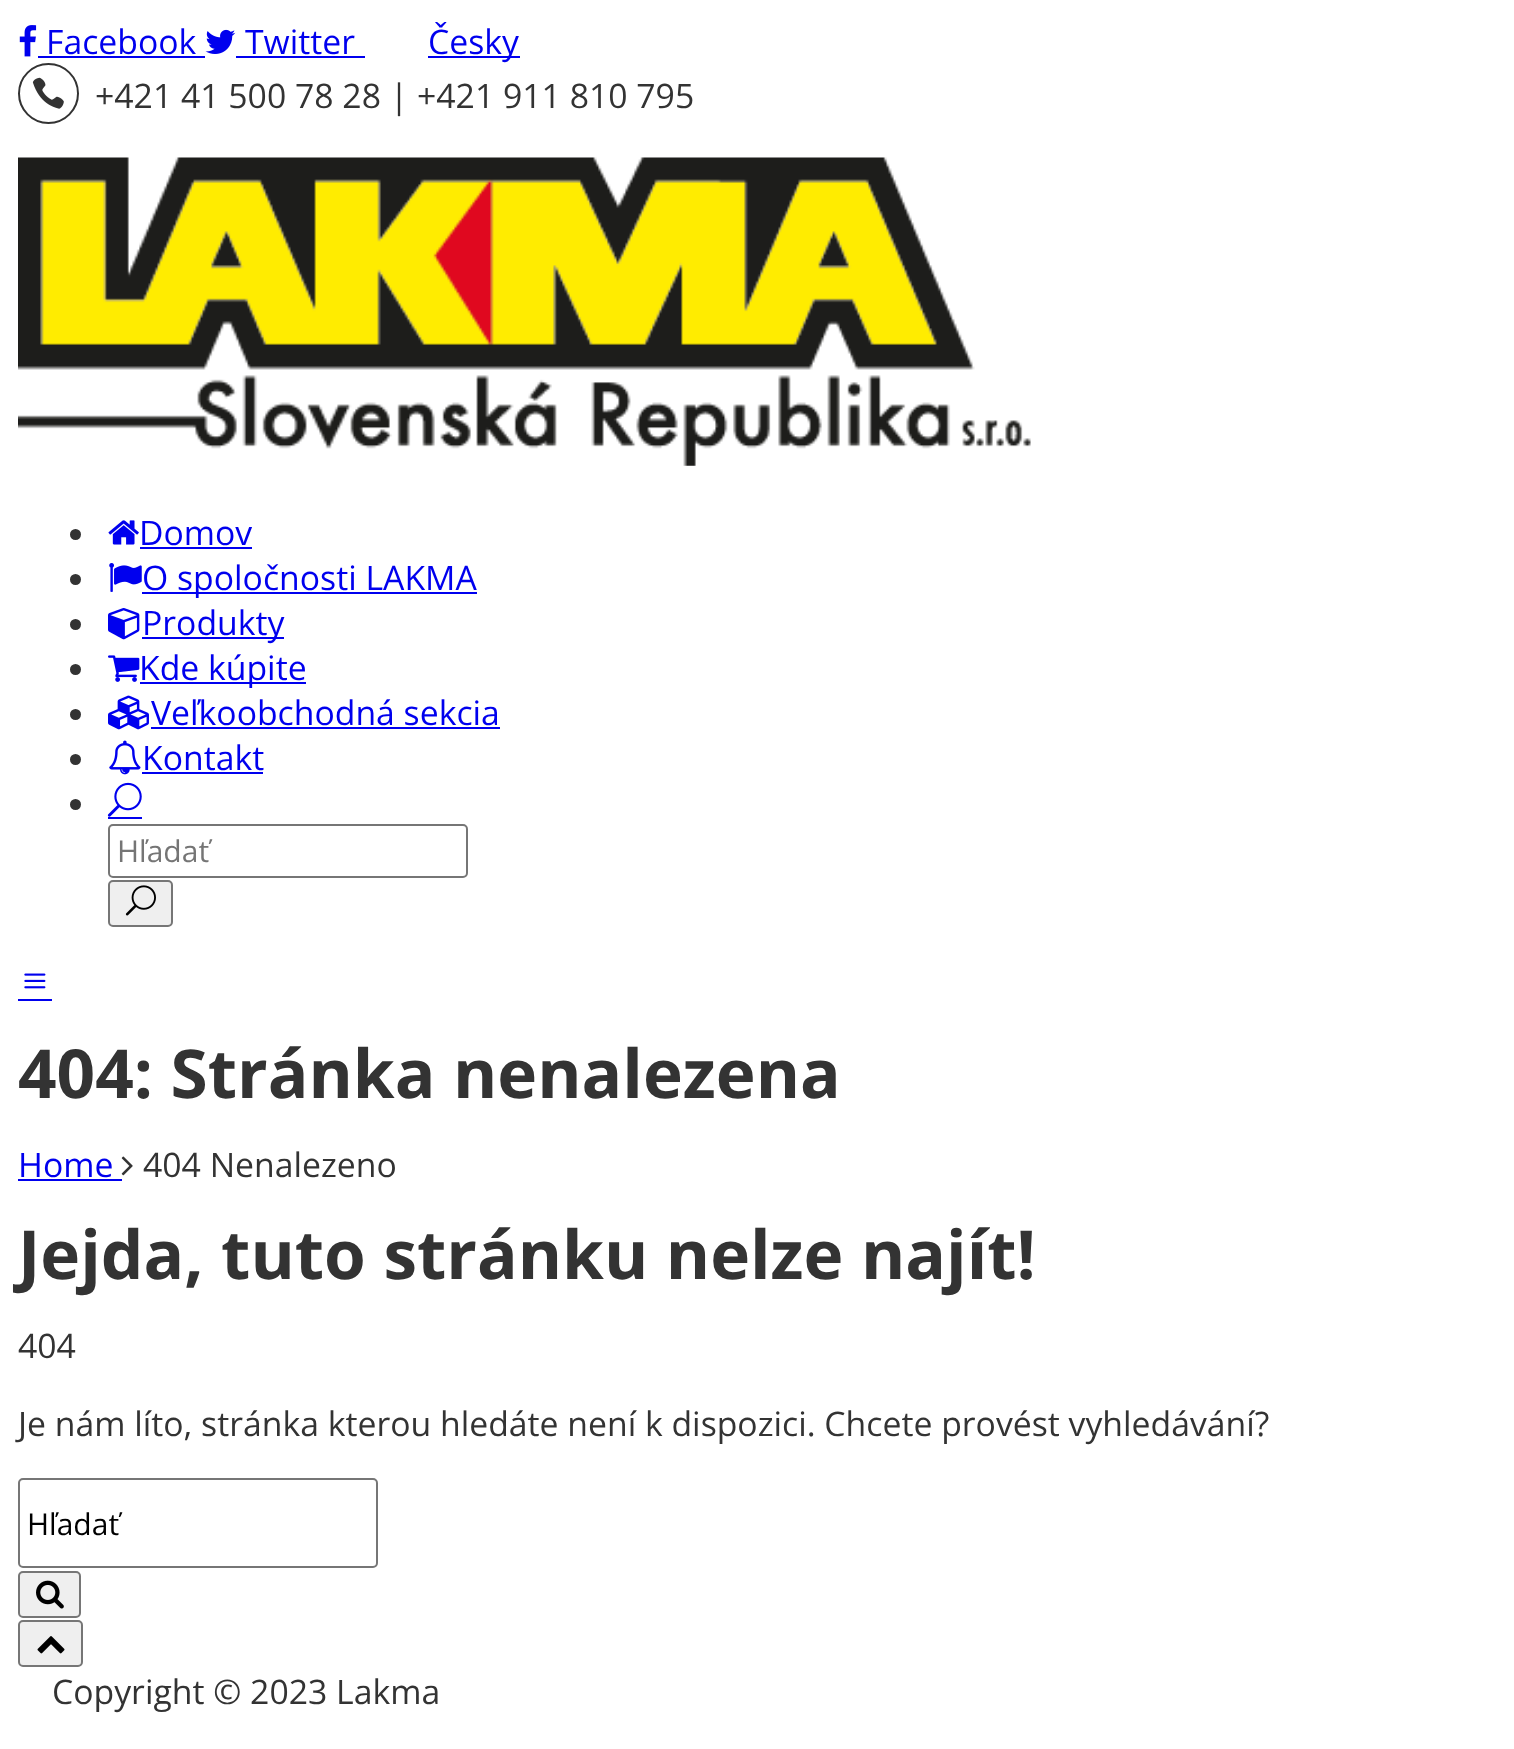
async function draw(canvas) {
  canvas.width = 1514;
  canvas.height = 1749;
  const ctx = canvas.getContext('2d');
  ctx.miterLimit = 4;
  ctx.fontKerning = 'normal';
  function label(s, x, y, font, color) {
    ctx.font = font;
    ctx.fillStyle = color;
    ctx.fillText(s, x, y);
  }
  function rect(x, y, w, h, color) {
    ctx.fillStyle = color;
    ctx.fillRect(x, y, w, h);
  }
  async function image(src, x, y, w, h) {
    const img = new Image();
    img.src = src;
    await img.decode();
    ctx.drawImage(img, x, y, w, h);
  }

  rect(0, 0, 1514, 1749, '#fff');
  await image('assets/img1.png', 19, 25, 18, 32);
  label('Facebook', 46, 54, '33.75px Open Sans', '#00e');
  rect(38, 56, 167, 2, '#00e');
  await image('assets/img2.png', 205, 29, 31, 25);
  label('Twitter', 245, 54, '33.75px Open Sans', '#00e');
  rect(236, 56, 129, 2, '#00e');
  rect(428, 56, 92, 2, '#00e');
  label('Česky', 428, 54, '33.75px Open Sans', '#00e');
  ctx.beginPath();
  ctx.arc(48.5, 93.5, 29.5, 0, 2 * Math.PI);
  ctx.strokeStyle = '#333';
  ctx.lineWidth = 2;
  ctx.stroke();
  await image('assets/img3.png', 32, 77, 32, 32);
  label('+421 41 500 78 28 | +421 911 810 795', 95, 108, '33.75px Open Sans', '#333');
  await image('assets/img4.png', 18, 157, 1013, 309);
  ctx.beginPath();
  ctx.arc(75.5, 534.5, 5.5, 0, 2 * Math.PI);
  ctx.fill();
  await image('assets/img5.png', 108, 520, 31, 25);
  label('Domov', 139, 545, '33.75px Open Sans', '#00e');
  rect(140, 547, 112, 2, '#00e');
  ctx.fillStyle = '#333';
  ctx.beginPath();
  ctx.arc(75.5, 579.5, 5.5, 0, 2 * Math.PI);
  ctx.fill();
  await image('assets/img6.png', 109, 563, 33, 29);
  rect(142, 592, 335, 2, '#00e');
  label('O spoločnosti LAKMA', 142, 590, '33.75px Open Sans', '#00e');
  ctx.fillStyle = '#333';
  ctx.beginPath();
  ctx.arc(75.5, 624.5, 5.5, 0, 2 * Math.PI);
  ctx.fill();
  await image('assets/img7.png', 108, 608, 32, 32);
  rect(142, 637, 142, 2, '#00e');
  label('Produkty', 142, 635, '33.75px Open Sans', '#00e');
  ctx.fillStyle = '#333';
  ctx.beginPath();
  ctx.arc(75.5, 669.5, 5.5, 0, 2 * Math.PI);
  ctx.fill();
  await image('assets/img8.png', 108, 655, 32, 27);
  rect(140, 682, 166, 2, '#00e');
  label('Kde kúpite', 139, 680, '33.75px Open Sans', '#00e');
  ctx.fillStyle = '#333';
  ctx.beginPath();
  ctx.arc(75.5, 714.5, 5.5, 0, 2 * Math.PI);
  ctx.fill();
  await image('assets/img9.png', 108, 695, 41, 35);
  label('Veľkoobchodná sekcia', 151, 725, '33.75px Open Sans', '#00e');
  rect(151, 727, 349, 2, '#00e');
  ctx.fillStyle = '#333';
  ctx.beginPath();
  ctx.arc(75.5, 759.5, 5.5, 0, 2 * Math.PI);
  ctx.fill();
  await image('assets/img10.png', 109, 740, 32, 35);
  label('Kontakt', 142, 770, '33.75px Open Sans', '#00e');
  rect(142, 772, 121, 2, '#00e');
  ctx.fillStyle = '#333';
  ctx.beginPath();
  ctx.arc(75.5, 804.5, 5.5, 0, 2 * Math.PI);
  ctx.fill();
  await image('assets/img11.png', 107, 782, 35, 35);
  rect(108, 817, 34, 2, '#00e');
  ctx.beginPath();
  ctx.roundRect(109, 825, 358, 52, 4);
  ctx.strokeStyle = '#767676';
  ctx.stroke();
  label('Hľadať', 117, 862, '30px Open Sans', '#757575');
  ctx.fillStyle = '#efefef';
  ctx.beginPath();
  ctx.roundRect(109, 881, 63, 45, 4);
  ctx.fill();
  ctx.stroke();
  await image('assets/img12.png', 125, 885, 31, 31);
  await image('assets/img13.png', 24, 973, 22, 16);
  rect(18, 999, 34, 2, '#00e');
  label('404: Stránka nenalezena', 18, 1098, 'bold 67.5px Open Sans', '#333');
  label('Home', 18, 1177, '33.75px Open Sans', '#00e');
  rect(18, 1179, 104, 2, '#00e');
  await image('assets/img14.png', 121, 1156, 12, 20);
  label('404 Nenalezeno', 143, 1177, '33.75px Open Sans', '#333');
  label('Jejda, tuto stránku nelze najít!', 18, 1279, 'bold 67.5px Open Sans', '#333');
  label('404', 18, 1358, '33.75px Open Sans', '#333');
  label('Je nám líto, stránka kterou hledáte není k dispozici. Chcete provést vyhledávání?', 18, 1436, '33.75px Open Sans', '#333');
  ctx.beginPath();
  ctx.roundRect(19, 1479, 358, 88, 4);
  ctx.stroke();
  label('Hľadať', 27, 1535, '30px Open Sans', '#000');
  ctx.fillStyle = '#efefef';
  ctx.beginPath();
  ctx.roundRect(19, 1572, 61, 45, 4);
  ctx.fill();
  ctx.stroke();
  await image('assets/img15.png', 36, 1580, 28, 29);
  ctx.beginPath();
  ctx.roundRect(19, 1621, 63, 45, 4);
  ctx.fill();
  ctx.stroke();
  await image('assets/img16.png', 37, 1636, 28, 18);
  label('Copyright © 2023 Lakma', 52, 1704, '33.75px Open Sans', '#333');
}

draw(document.querySelector('canvas'));
